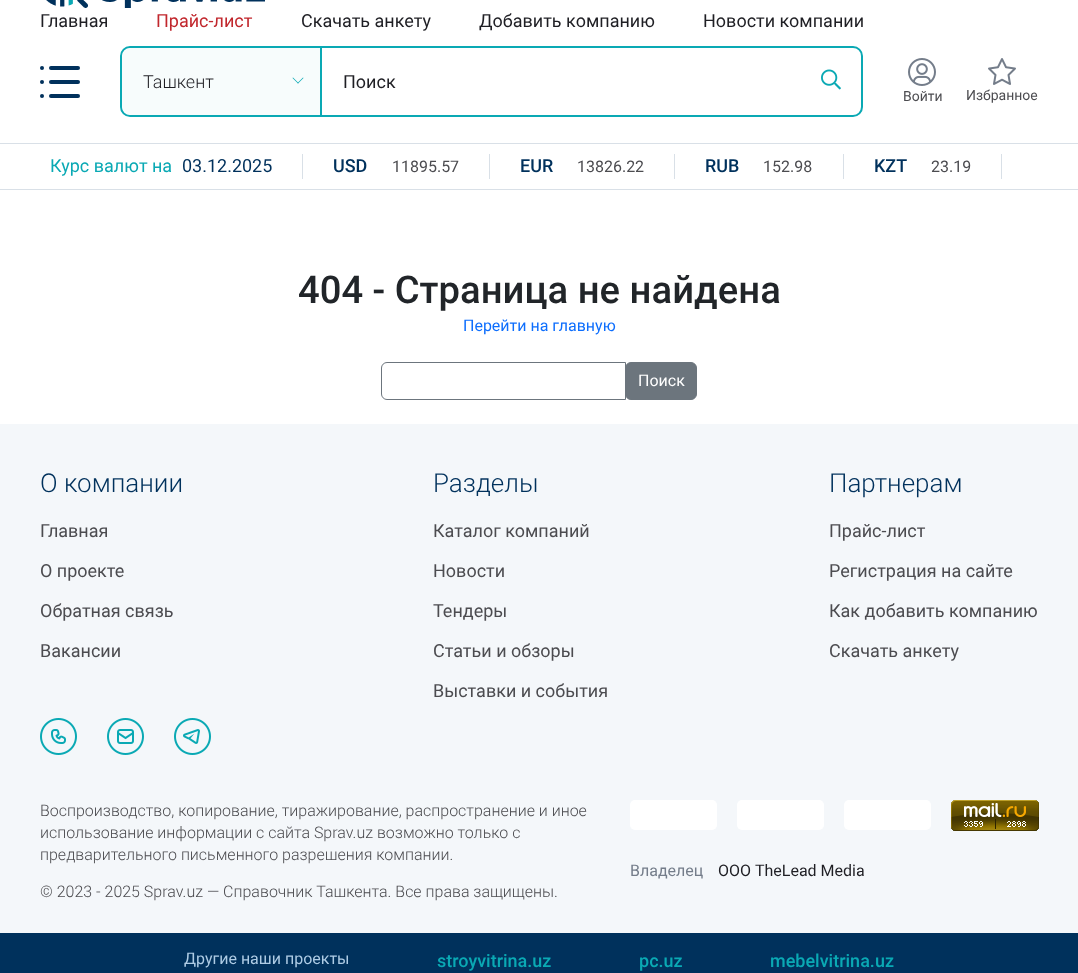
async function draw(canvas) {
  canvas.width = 1078;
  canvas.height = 973;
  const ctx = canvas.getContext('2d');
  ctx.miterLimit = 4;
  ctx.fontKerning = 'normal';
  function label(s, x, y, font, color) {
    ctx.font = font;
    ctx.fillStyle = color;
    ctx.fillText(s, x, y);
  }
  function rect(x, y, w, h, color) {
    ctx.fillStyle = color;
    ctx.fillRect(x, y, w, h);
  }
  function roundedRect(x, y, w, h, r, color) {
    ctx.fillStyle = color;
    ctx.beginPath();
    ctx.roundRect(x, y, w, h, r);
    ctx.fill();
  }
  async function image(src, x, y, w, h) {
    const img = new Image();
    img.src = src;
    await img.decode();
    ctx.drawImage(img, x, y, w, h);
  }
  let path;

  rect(0, 0, 1078, 973, '#fff');
  await image('assets/img1.png', 46, 0, 219, 8);
  label('Главная', 40, 27, '18px Roboto', '#1f1f24');
  label('Прайс-лист', 156, 27, '18px Roboto', '#c1272d');
  label('Скачать анкету', 301, 27, '18px Roboto', '#1f1f24');
  label('Добавить компанию', 479, 27, '18px Roboto', '#1f1f24');
  label('Новости компании', 703, 27, '18px Roboto', '#1f1f24');
  ctx.fillStyle = '#00315c';
  ctx.beginPath();
  ctx.arc(42, 68, 2, 0, 2 * Math.PI);
  ctx.fill();
  roundedRect(49, 66, 31, 4, 2, '#00315c');
  ctx.beginPath();
  ctx.arc(42, 82, 2, 0, 2 * Math.PI);
  ctx.fill();
  roundedRect(49, 80, 31, 4, 2, '#00315c');
  ctx.beginPath();
  ctx.arc(42, 96, 2, 0, 2 * Math.PI);
  ctx.fill();
  roundedRect(49, 94, 31, 4, 2, '#00315c');
  ctx.beginPath();
  ctx.roundRect(121, 47, 741, 69, 9);
  ctx.strokeStyle = '#0aa9b4';
  ctx.lineWidth = 2;
  ctx.stroke();
  ctx.fillStyle = '#f7fcfc';
  ctx.beginPath();
  ctx.roundRect(122, 48, 200, 67, [10, 0, 0, 10]);
  ctx.fill();
  rect(320, 48, 2, 67, '#0aa9b4');
  label('Ташкент', 143, 88, '300 18px Roboto', '#1f1f24');
  ctx.fillStyle = '#0aa9b4';
  path = new Path2D('M303 77.5L303.5 78L298 83.5L297.5 83Z');
  ctx.fill(path);
  path = new Path2D('M293 77.5L298.5 83L298 83.5L292.5 78Z');
  ctx.fill(path);
  label('Поиск', 343, 88, '18px Roboto', '#1f1f24');
  await image('assets/img2.png', 821, 69, 20, 21);
  await image('assets/img3.png', 908, 58, 28, 28);
  label('Войти', 903, 101, '14px Roboto', '#4c4c50');
  await image('assets/img4.png', 988, 58, 28, 27);
  label('Избранное', 966, 100, '14px Roboto', '#4c4c50');
  rect(0, 143, 1078, 1, '#d9e0e7');
  rect(302, 154, 1, 25, '#d9e0e7');
  label('Курс валют на', 50, 172, '18px Roboto', '#0aa9b4');
  label('03.12.2025', 182, 172, '18px Roboto', '#00315c');
  rect(489, 154, 1, 25, '#d9e0e7');
  label('USD', 333, 172, '500 18px Roboto', '#00315c');
  label('11895.57', 392, 172, '16px Roboto', '#4c4c50');
  rect(674, 154, 1, 25, '#d9e0e7');
  label('EUR', 520, 172, '500 18px Roboto', '#00315c');
  label('13826.22', 577, 172, '16px Roboto', '#4c4c50');
  rect(843, 154, 1, 25, '#d9e0e7');
  label('RUB', 705, 172, '500 18px Roboto', '#00315c');
  label('152.98', 763, 172, '16px Roboto', '#4c4c50');
  rect(1001, 154, 1, 25, '#d9e0e7');
  label('KZT', 874, 172, '500 18px Roboto', '#00315c');
  label('23.19', 931, 172, '16px Roboto', '#4c4c50');
  rect(0, 189, 1078, 1, '#d9e0e7');
  label('404 - Страница не найдена', 298, 303, '500 38.2px Roboto', '#212529');
  label('Перейти на главную', 463, 331, '16px Roboto', '#0d6efd');
  ctx.beginPath();
  ctx.roundRect(381.5, 362.5, 244, 37, [5.5, 0, 0, 5.5]);
  ctx.strokeStyle = '#6c757d';
  ctx.lineWidth = 1;
  ctx.stroke();
  ctx.fillStyle = '#6c757d';
  ctx.beginPath();
  ctx.roundRect(625.5, 362.5, 71, 37, 5.5);
  ctx.fill();
  ctx.stroke();
  label('Поиск', 638, 386, '16px Roboto', '#fff');
  rect(0, 424, 1078, 509, '#f4f7fa');
  label('О компании', 40, 492, '300 26px Roboto', '#00315c');
  label('Главная', 40, 537, '18px Roboto', '#4c4c50');
  label('О проекте', 40, 577, '18px Roboto', '#4c4c50');
  label('Обратная связь', 40, 617, '18px Roboto', '#4c4c50');
  label('Вакансии', 40, 657, '18px Roboto', '#4c4c50');
  await image('assets/img5.png', 40, 718, 37, 37);
  await image('assets/img6.png', 107, 718, 37, 37);
  await image('assets/img7.png', 174, 718, 37, 37);
  label('Разделы', 433, 492, '300 26px Roboto', '#00315c');
  label('Каталог компаний', 433, 537, '18px Roboto', '#4c4c50');
  label('Новости', 433, 577, '18px Roboto', '#4c4c50');
  label('Тендеры', 433, 617, '18px Roboto', '#4c4c50');
  label('Статьи и обзоры', 433, 657, '18px Roboto', '#4c4c50');
  label('Выставки и события', 433, 697, '18px Roboto', '#4c4c50');
  label('Партнерам', 829, 492, '300 26px Roboto', '#00315c');
  label('Прайс-лист', 829, 537, '18px Roboto', '#4c4c50');
  label('Регистрация на сайте', 829, 577, '18px Roboto', '#4c4c50');
  label('Как добавить компанию', 829, 617, '18px Roboto', '#4c4c50');
  label('Скачать анкету', 829, 657, '18px Roboto', '#4c4c50');
  label('Воспроизводство, копирование, тиражирование, распространение и иное', 40, 816, '300 16px Roboto', '#4c4c50');
  label('использование информации с сайта Sprav.uz возможно только с', 40, 838, '300 16px Roboto', '#4c4c50');
  label('предварительного письменного разрешения компании.', 40, 860, '300 16px Roboto', '#4c4c50');
  label('© 2023 - 2025 Sprav.uz — Справочник Ташкента. Все права защищены.', 40, 897, '300 16px Roboto', '#4c4c50');
  roundedRect(630, 800, 87, 30, 5, '#fff');
  roundedRect(737, 800, 87, 30, 5, '#fff');
  roundedRect(844, 800, 87, 30, 5, '#fff');
  await image('assets/img8.png', 951, 800, 88, 31);
  label('Владелец', 630, 876, '16px Roboto', '#747d8a');
  label('ООО TheLead Media', 718, 876, '16px Roboto', '#1f1f24');
  rect(0, 933, 1078, 40, '#00315c');
  label('Другие наши проекты', 184, 964, '16px Roboto', '#aecce5');
  label('stroyvitrina.uz', 437, 967, '500 18px Roboto', '#0aa9b4');
  label('pc.uz', 639, 967, '500 18px Roboto', '#0aa9b4');
  label('mebelvitrina.uz', 770, 967, '500 18px Roboto', '#0aa9b4');
}

draw(document.querySelector('canvas'));
